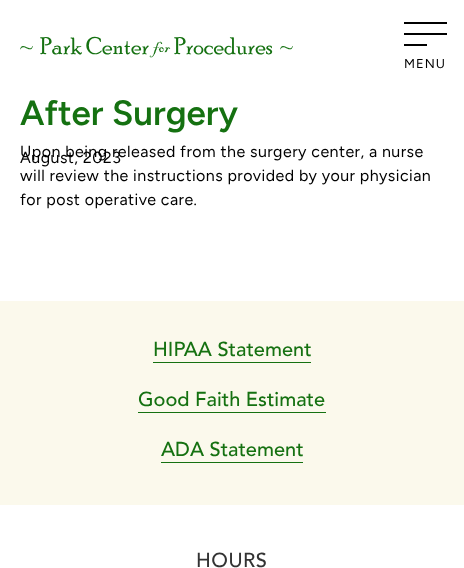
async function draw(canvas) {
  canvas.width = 464;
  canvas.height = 568;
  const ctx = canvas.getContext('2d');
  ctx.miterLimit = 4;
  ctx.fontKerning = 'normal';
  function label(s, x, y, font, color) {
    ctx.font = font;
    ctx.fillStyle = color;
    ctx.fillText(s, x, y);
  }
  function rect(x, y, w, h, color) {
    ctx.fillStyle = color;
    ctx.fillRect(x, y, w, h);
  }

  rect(0, 0, 464, 568, '#fff');
  label('~', 20, 54, '24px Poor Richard', '#157111');
  label('Park Center', 40, 54, '24px Poor Richard', '#157111');
  label('for', 153, 52, '900 18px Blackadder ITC', '#157111');
  label('Procedures', 174, 54, '24px Poor Richard', '#157111');
  label('~', 280, 54, '24px Poor Richard', '#157111');
  rect(404, 33, 43, 2, '#000');
  rect(404, 22, 43, 2, '#000');
  rect(404, 44, 23, 2, '#000');
  ctx.letterSpacing = '1px';
  label('MENU', 404, 68, '13px Figtree', '#000');
  ctx.letterSpacing = '0px';
  label('After Surgery', 20, 125, '600 35px Figtree', '#157111');
  ctx.letterSpacing = '0.45px';
  label('August, 2023', 20, 163, '16px Figtree', '#000');
  label('Upon being released from the surgery center, a nurse', 20, 157, '16px Figtree', '#000');
  label('will review the instructions provided by your physician', 20, 181, '16px Figtree', '#000');
  label('for post operative care.', 20, 205, '16px Figtree', '#000');
  rect(0, 301, 464, 204, '#fbf9ec');
  ctx.letterSpacing = '0px';
  label('HIPAA Statement', 153, 356, '500 20px Avenir', '#157111');
  rect(153, 362, 158, 1, '#157111');
  label('Good Faith Estimate', 138, 406, '500 20px Avenir', '#157111');
  rect(138, 412, 188, 1, '#157111');
  label('ADA Statement', 161, 456, '500 20px Avenir', '#157111');
  rect(161, 462, 142, 1, '#157111');
  ctx.letterSpacing = '0.5px';
  label('HOURS', 196, 567, '500 20px Avenir', '#333');
}

draw(document.querySelector('canvas'));
